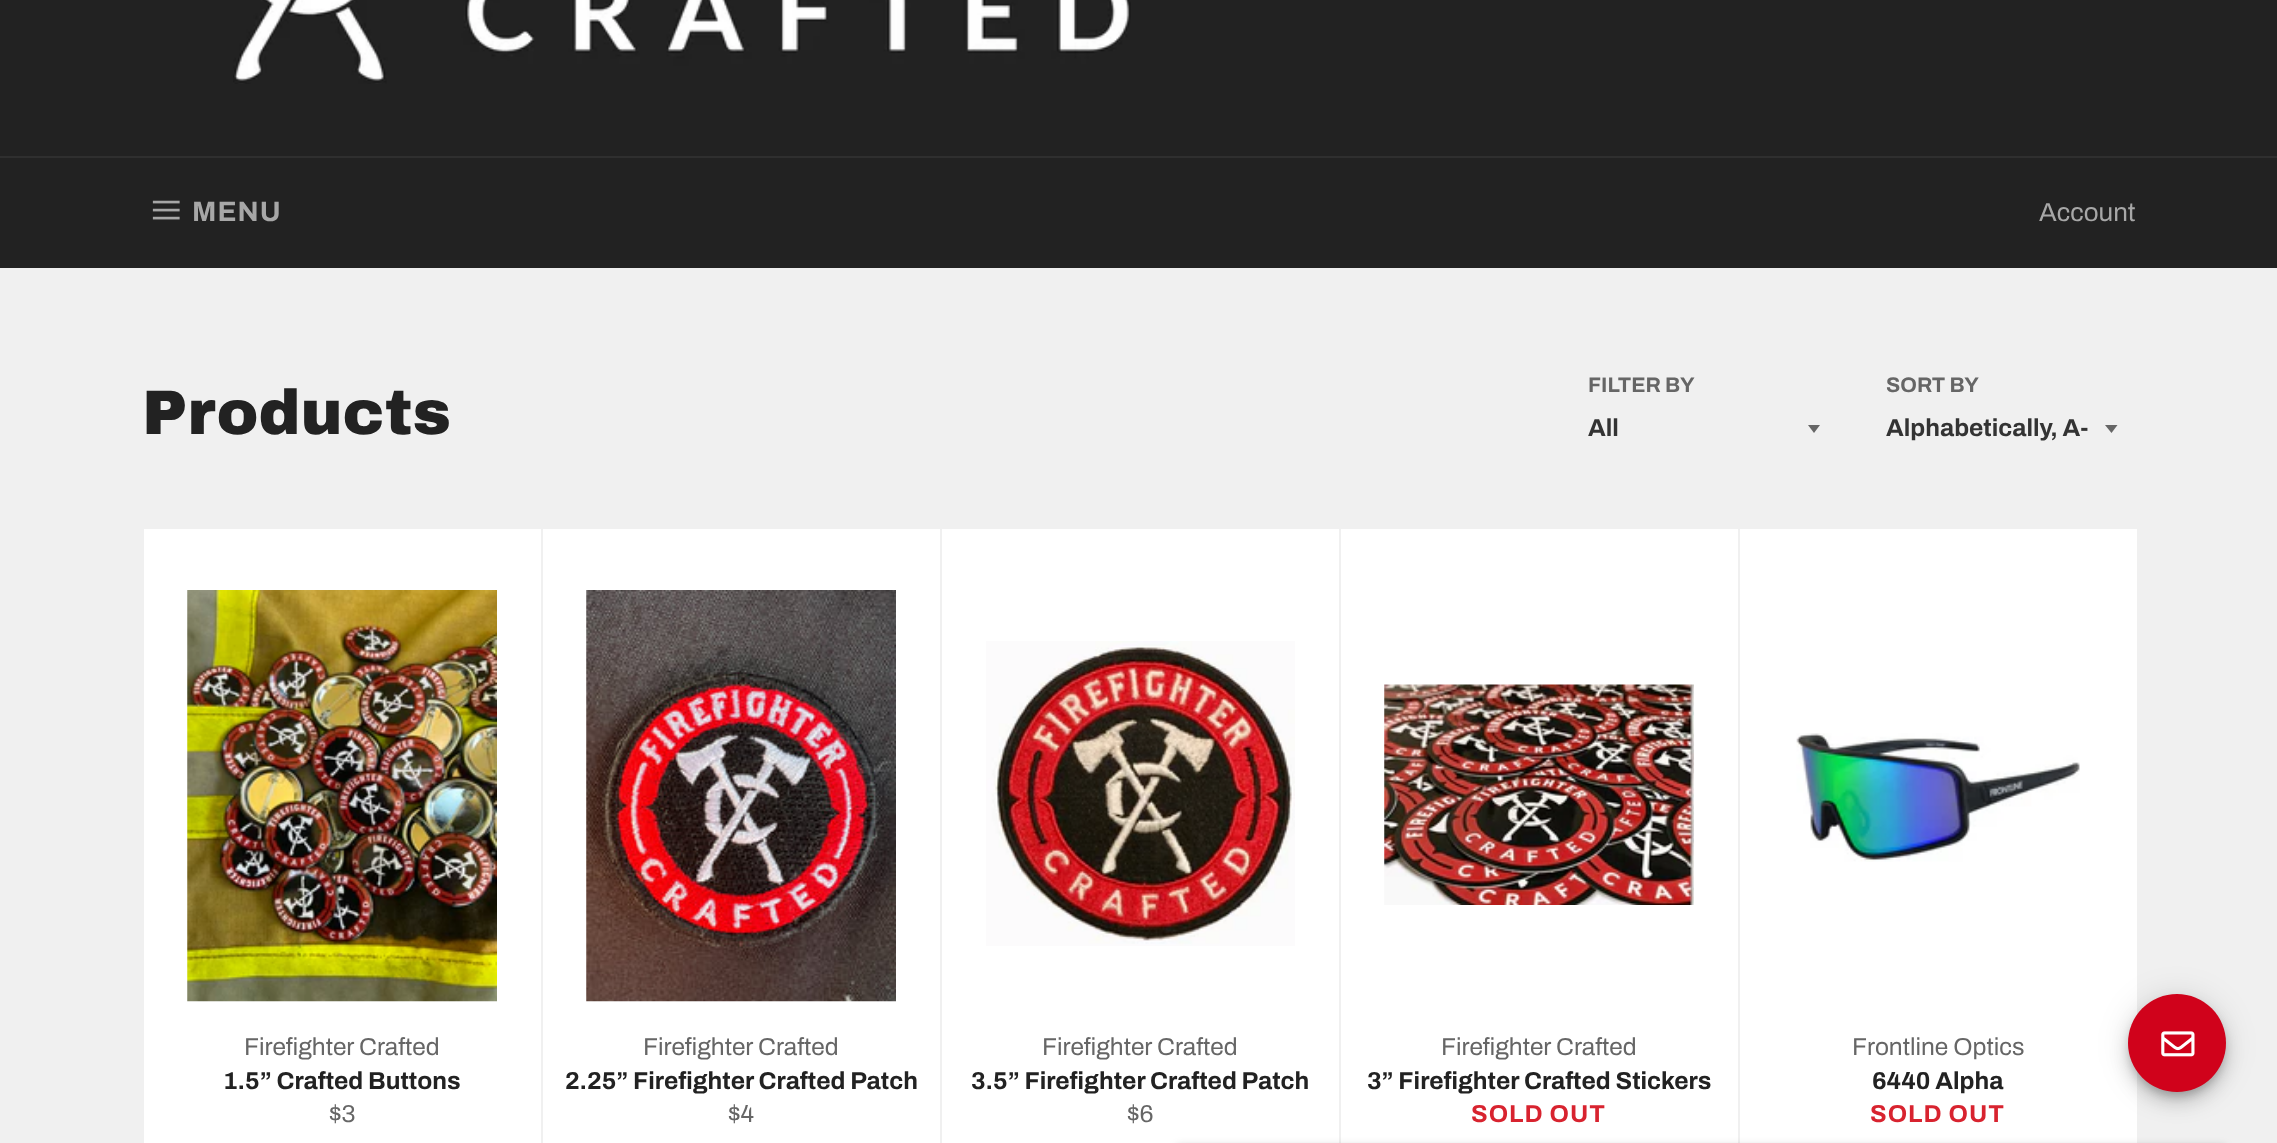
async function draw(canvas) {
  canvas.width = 2277;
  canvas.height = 1143;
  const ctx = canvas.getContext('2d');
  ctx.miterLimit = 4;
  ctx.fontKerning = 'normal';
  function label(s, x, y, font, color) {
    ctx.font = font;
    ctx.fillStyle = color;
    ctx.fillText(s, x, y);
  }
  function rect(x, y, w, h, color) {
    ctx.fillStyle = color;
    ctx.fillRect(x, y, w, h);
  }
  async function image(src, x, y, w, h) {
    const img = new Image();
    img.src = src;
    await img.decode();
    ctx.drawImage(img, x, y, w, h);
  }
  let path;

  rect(0, 0, 2277, 1143, '#f0f0f0');
  rect(0, 0, 2277, 156, '#222');
  await image('assets/img1.png', 233, 0, 898, 84);
  rect(0, 158, 2277, 110, '#222');
  rect(0, 156, 2277, 2, '#2f2f2f');
  await image('assets/img2.png', 152, 200, 28, 20);
  ctx.letterSpacing = '1px';
  label('MENU', 192, 221, 'bold 28px Archivo', '#a7a7a7');
  ctx.letterSpacing = '0px';
  label('Account', 2039, 221, '26px Archivo', '#a7a7a7');
  label('Products', 142, 434, '63px Archivo Black', '#222');
  label('FILTER BY', 1588, 392, 'bold 21px Archivo', '#666');
  path = new Path2D('M1808 425L1814 433L1820 425Z');
  ctx.fill(path);
  label('All', 1588, 436, 'bold 24.5px Archivo', '#333');
  label('SORT BY', 1886, 392, 'bold 21px Archivo', '#666');
  path = new Path2D('M2105 425L2111.5 433L2117.5 425Z');
  ctx.fill(path);
  label('Alphabetically, A-', 1886, 436, 'bold 24.5px Archivo', '#333');
  rect(144, 529, 397, 614, '#fff');
  await image('assets/img3.png', 187, 590, 310, 412);
  label('Firefighter Crafted', 244, 1055, '24.5px Archivo', '#666');
  label('1.5” Crafted Buttons', 223, 1089, 'bold 24.5px Archivo', '#222');
  label('$3', 329, 1122, '24.5px Archivo', '#666');
  rect(543, 529, 397, 614, '#fff');
  await image('assets/img4.png', 586, 590, 310, 412);
  label('Firefighter Crafted', 643, 1055, '24.5px Archivo', '#666');
  label('2.25” Firefighter Crafted Patch', 565, 1089, 'bold 24.5px Archivo', '#222');
  label('$4', 728, 1122, '24.5px Archivo', '#666');
  rect(942, 529, 397, 614, '#fff');
  await image('assets/img5.png', 986, 641, 309, 305);
  label('Firefighter Crafted', 1042, 1055, '24.5px Archivo', '#666');
  label('3.5” Firefighter Crafted Patch', 971, 1089, 'bold 24.5px Archivo', '#222');
  label('$6', 1127, 1122, '24.5px Archivo', '#666');
  rect(1341, 529, 397, 614, '#fff');
  await image('assets/img6.png', 1384, 684, 310, 221);
  label('Firefighter Crafted', 1441, 1055, '24.5px Archivo', '#666');
  label('3” Firefighter Crafted Stickers', 1367, 1089, 'bold 24.5px Archivo', '#222');
  ctx.letterSpacing = '1px';
  label('SOLD OUT', 1471, 1122, 'bold 24.5px Archivo', '#d8232f');
  rect(1740, 529, 397, 614, '#fff');
  await image('assets/img7.png', 1796, 733, 284, 129);
  ctx.letterSpacing = '0px';
  label('Frontline Optics', 1852, 1055, '24.5px Archivo', '#666');
  label('6440 Alpha', 1872, 1089, 'bold 24.5px Archivo', '#222');
  ctx.letterSpacing = '1px';
  label('SOLD OUT', 1870, 1122, 'bold 24.5px Archivo', '#d8232f');
  ctx.fillStyle = '#0000001f';
  ctx.filter = 'blur(16px)';
  ctx.beginPath();
  ctx.roundRect(2128, 996, 98, 98, 49);
  ctx.fill();
  ctx.filter = 'none';
  ctx.fillStyle = '#00000024';
  ctx.filter = 'blur(9px)';
  ctx.beginPath();
  ctx.roundRect(2128, 1005, 98, 98, 49);
  ctx.fill();
  ctx.filter = 'none';
  ctx.fillStyle = '#00000033';
  ctx.filter = 'blur(4.5px)';
  ctx.beginPath();
  ctx.roundRect(2130, 1001, 94, 95, 47);
  ctx.fill();
  ctx.filter = 'none';
  ctx.fillStyle = '#d0021b';
  ctx.beginPath();
  ctx.arc(2177, 1043, 49, 0, 2 * Math.PI);
  ctx.fill();
  await image('assets/img8.png', 2161, 1031, 34, 26);
  ctx.fillStyle = '#00000033';
  ctx.filter = 'blur(4.5px)';
  ctx.beginPath();
  ctx.roundRect(1176, 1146, 1050, 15, 4);
  ctx.fill();
  ctx.filter = 'none';
}

draw(document.querySelector('canvas'));
